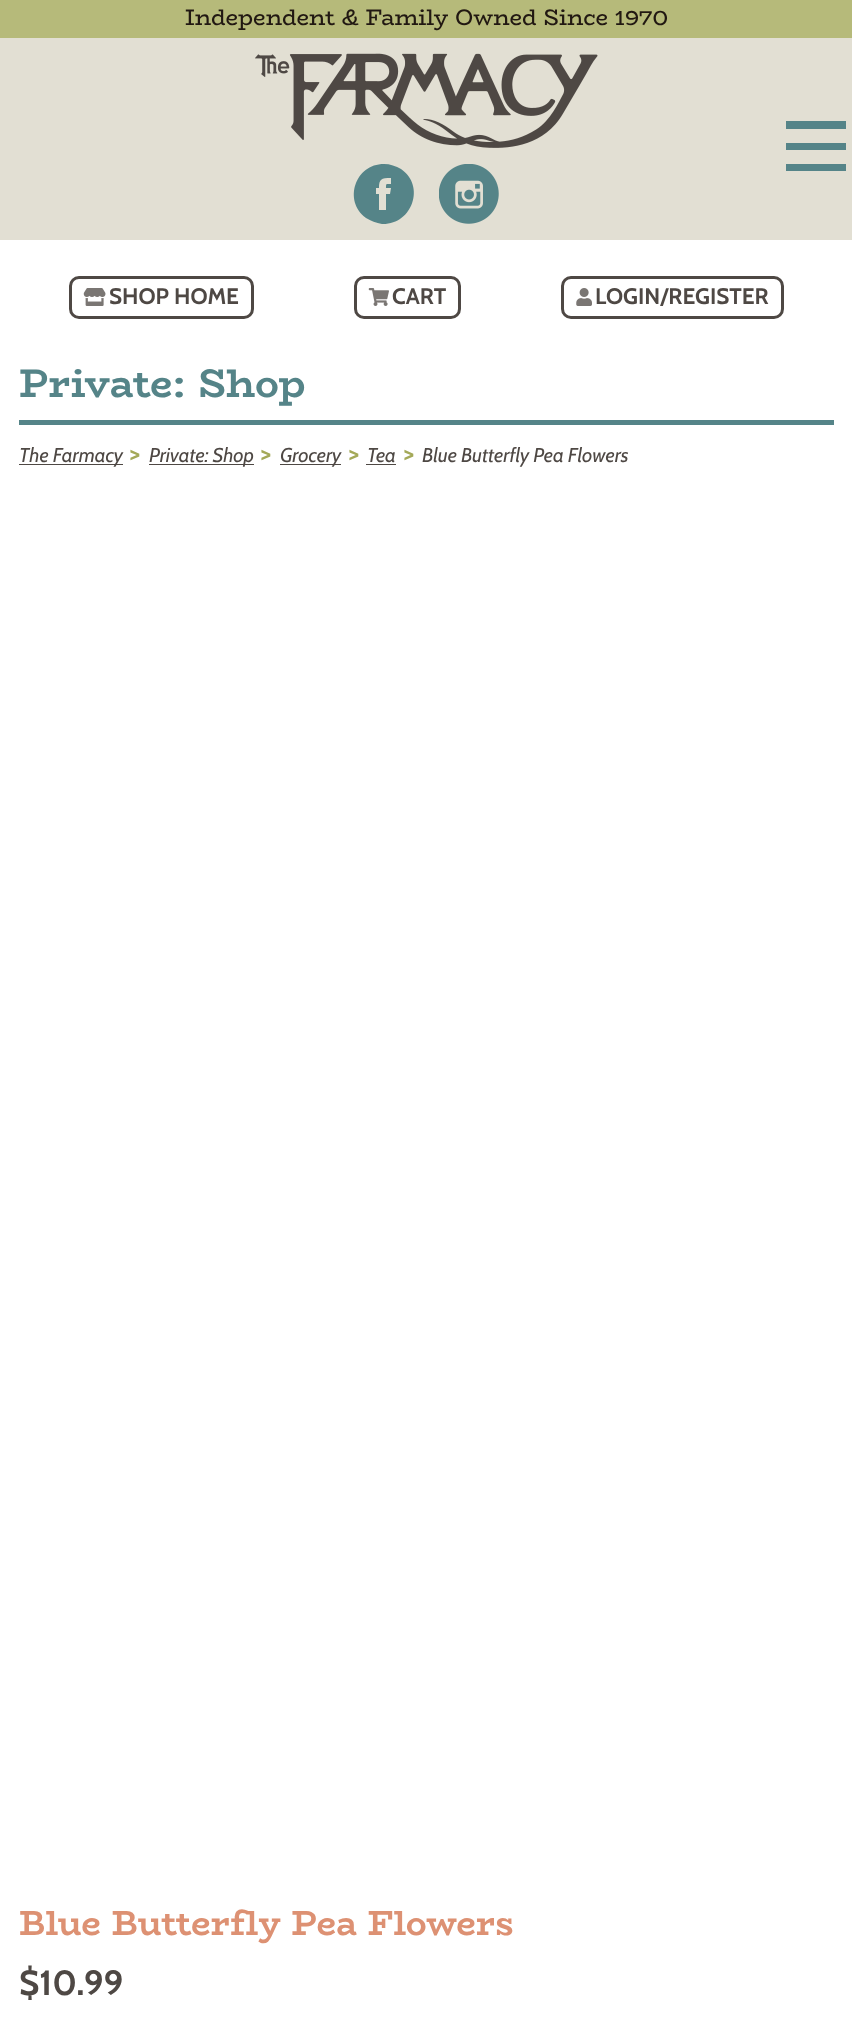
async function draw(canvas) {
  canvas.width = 852;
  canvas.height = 2020;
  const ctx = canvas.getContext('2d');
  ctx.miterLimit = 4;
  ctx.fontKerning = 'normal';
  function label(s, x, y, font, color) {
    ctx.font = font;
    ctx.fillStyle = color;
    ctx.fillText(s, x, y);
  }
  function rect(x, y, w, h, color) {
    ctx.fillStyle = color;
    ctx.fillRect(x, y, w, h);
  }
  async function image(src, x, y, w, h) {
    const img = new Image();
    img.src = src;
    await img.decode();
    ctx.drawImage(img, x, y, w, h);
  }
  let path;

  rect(0, 0, 852, 2020, '#fff');
  rect(0, 0, 852, 38, '#b6ba7a');
  label('Independent & Family Owned Since 1970', 185, 25, '22.5px BioRhyme', '#211812');
  rect(0, 38, 852, 202, '#e2dfd3');
  await image('assets/img1.png', 255, 53, 343, 95);
  rect(786, 143, 60, 7, '#558488');
  rect(786, 121, 60, 8, '#558488');
  rect(786, 164, 60, 7, '#558488');
  path = new Path2D('M384 164C355 164 343 201 366 218C371 221 376 223 382 224C412 225 426 186 401 169C396 166 390 164 384 164ZM390 194H386V210H379V194H376V188H379C379 179 381 178 391 178V184C386 184 386 183 386 188H391Z');
  ctx.fill(path);
  await image('assets/img2.png', 439, 164, 60, 60);
  ctx.beginPath();
  ctx.roundRect(70.5, 277.5, 182, 40, 8.5);
  ctx.strokeStyle = '#4e4844';
  ctx.lineWidth = 3;
  ctx.stroke();
  await image('assets/img3.png', 83, 288, 23, 18);
  label('SHOP HOME', 109, 304, 'bold 22.5px Cabin', '#4e4844');
  ctx.beginPath();
  ctx.roundRect(355.5, 277.5, 104, 40, 8.5);
  ctx.stroke();
  await image('assets/img4.png', 368, 288, 21, 18);
  label('CART', 392, 304, 'bold 22.5px Cabin', '#4e4844');
  ctx.beginPath();
  ctx.roundRect(562.5, 277.5, 220, 40, 8.5);
  ctx.stroke();
  await image('assets/img5.png', 576, 288, 16, 18);
  label('LOGIN/REGISTER', 595, 304, 'bold 22.5px Cabin', '#4e4844');
  rect(19, 420, 815, 5, '#558488');
  label('Private: Shop', 19, 397, 'bold 40px BioRhyme', '#558488');
  rect(19, 464, 104, 1, '#4e4844');
  label('The Farmacy', 19, 462, 'italic 20px Cabin', '#4e4844');
  label('>', 130, 462, 'bold 25px Cabin', '#a4a958');
  rect(149, 464, 105, 1, '#4e4844');
  label('Private: Shop', 149, 462, 'italic 20px Cabin', '#4e4844');
  label('>', 261, 462, 'bold 25px Cabin', '#a4a958');
  rect(280, 464, 61, 1, '#4e4844');
  label('Grocery', 280, 462, 'italic 20px Cabin', '#4e4844');
  label('>', 349, 462, 'bold 25px Cabin', '#a4a958');
  label('Tea', 367, 462, 'italic 20px Cabin', '#4e4844');
  rect(366, 464, 30, 1, '#4e4844');
  label('>', 404, 462, 'bold 25px Cabin', '#a4a958');
  label('Blue Butterfly Pea Flowers', 422, 462, 'italic 20px Cabin', '#4e4844');
  label('Blue Butterfly Pea Flowers', 19, 1935, 'bold 35px BioRhyme', '#dd9173');
  label('$10.99', 19, 1995, 'bold 35px Cabin', '#4e4844');
}

draw(document.querySelector('canvas'));
